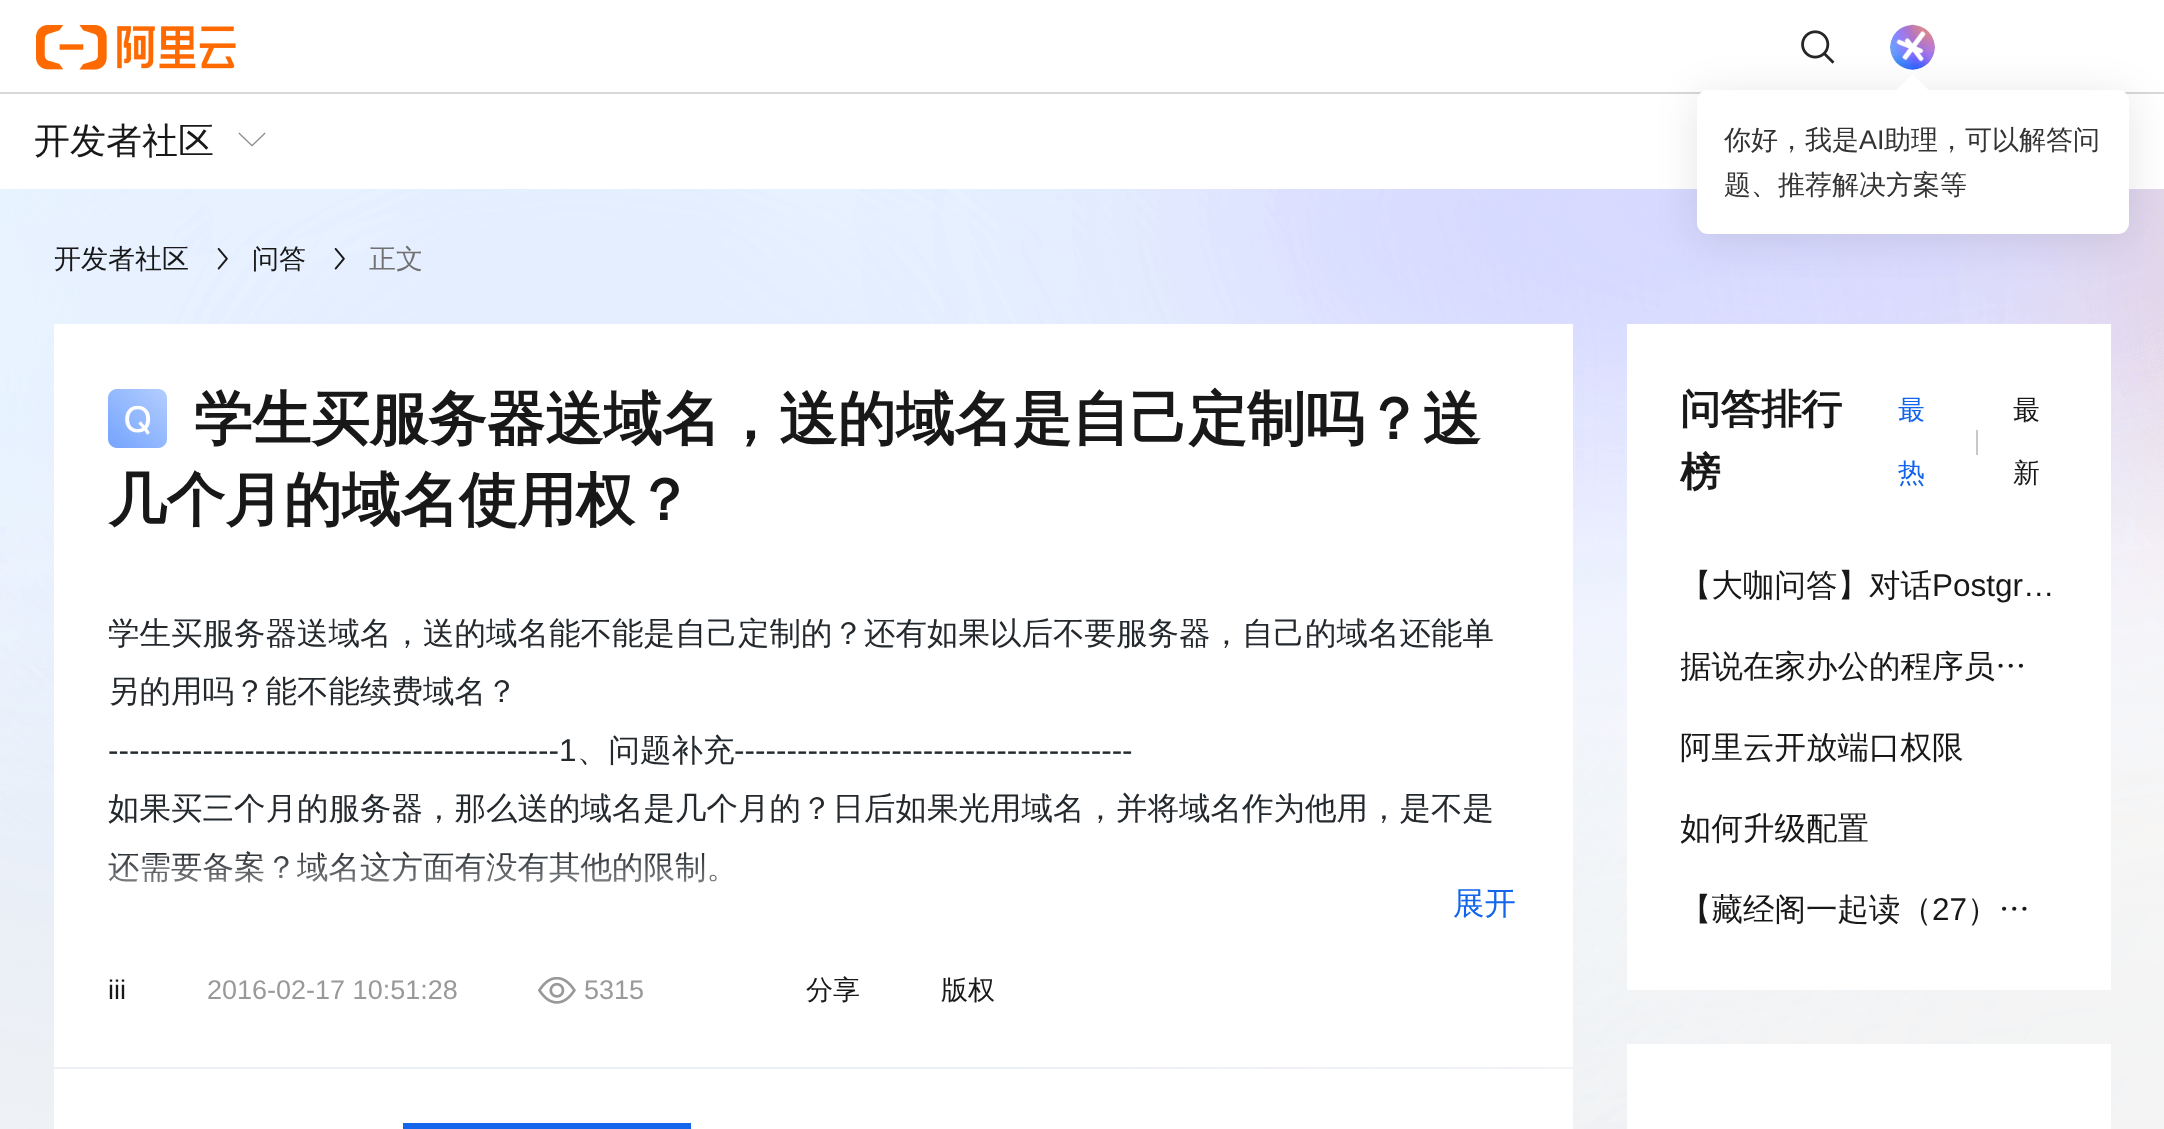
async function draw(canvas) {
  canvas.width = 2164;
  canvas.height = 1129;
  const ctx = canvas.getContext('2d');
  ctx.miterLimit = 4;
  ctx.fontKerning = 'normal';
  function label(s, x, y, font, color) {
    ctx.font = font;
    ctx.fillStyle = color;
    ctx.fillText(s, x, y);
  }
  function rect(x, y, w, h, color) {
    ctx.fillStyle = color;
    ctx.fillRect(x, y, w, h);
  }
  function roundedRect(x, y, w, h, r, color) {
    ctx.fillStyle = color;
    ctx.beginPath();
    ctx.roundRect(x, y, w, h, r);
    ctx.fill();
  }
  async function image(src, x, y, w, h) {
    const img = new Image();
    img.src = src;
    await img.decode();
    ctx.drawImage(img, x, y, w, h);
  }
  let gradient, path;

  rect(0, 0, 2164, 1129, '#f4f4f4');
  rect(0, 0, 2164, 189, '#fff');
  label('开发者社区', 34, 153, '500 36px WenQuanYi Zen Hei', '#181818');
  await image('assets/img1.png', 238, 132, 28, 15);
  rect(0, 92, 2164, 2, '#d7d8d9');
  await image('assets/img2.png', 36, 25, 200, 45);
  await image('assets/img3.png', 1801, 30, 34, 34);
  await image('assets/img4.png', 1889, 24, 46, 46);
  await image('assets/img5.png', 1896, 31, 30, 31);
  await image('assets/img6.png', 0, 189, 2164, 940);
  ctx.fillStyle = '#0000001a';
  ctx.filter = 'blur(20px)';
  ctx.beginPath();
  ctx.roundRect(1697, 95, 432, 144, 11);
  ctx.fill();
  ctx.filter = 'none';
  roundedRect(1697, 90, 432, 144, 11, '#fff');
  path = new Path2D('M1912.5 74L1928.5 90L1912.5 106L1896.5 90Z');
  ctx.fill(path);
  label('你好，我是', 1724, 149, '500 27px WenQuanYi Zen Hei', '#333');
  label('AI', 1859, 149, '27px Liberation Sans', '#333');
  label('助理，可以解答问', 1884, 149, '500 27px WenQuanYi Zen Hei', '#333');
  label('题、推荐解决方案等', 1724, 194, '500 27px WenQuanYi Zen Hei', '#333');
  label('开发者社区', 54, 268, '500 27px WenQuanYi Zen Hei', '#181818');
  await image('assets/img7.png', 217, 248, 11, 22);
  label('问答', 252, 268, '500 27px WenQuanYi Zen Hei', '#181818');
  await image('assets/img8.png', 334, 248, 11, 22);
  label('正文', 369, 268, '500 27px WenQuanYi Zen Hei', '#717171');
  rect(54, 324, 1519, 743, '#fff');
  await image('assets/img9.png', 108, 389, 59, 59);
  label('学生买服务器送域名，送的域名是自己定制吗？送', 194, 439, 'bold 58.5px WenQuanYi Zen Hei', '#181818');
  label('几个月的域名使用权？', 108, 520, 'bold 58.5px WenQuanYi Zen Hei', '#181818');
  label('学生买服务器送域名，送的域名能不能是自己定制的？还有如果以后不要服务器，自己的域名还能单', 108, 644, '500 31.5px WenQuanYi Zen Hei', '#24292e');
  label('另的用吗？能不能续费域名？', 108, 702, '500 31.5px WenQuanYi Zen Hei', '#24292e');
  label('-------------------------------------------1', 108, 761, '31.5px Liberation Sans', '#24292e');
  label('、问题补充', 577, 761, '500 31.5px WenQuanYi Zen Hei', '#24292e');
  label('--------------------------------------', 734, 761, '31.5px Liberation Sans', '#24292e');
  label('如果买三个月的服务器，那么送的域名是几个月的？日后如果光用域名，并将域名作为他用，是不是', 108, 819, '500 31.5px WenQuanYi Zen Hei', '#24292e');
  label('还需要备案？域名这方面有没有其他的限制。', 108, 878, '500 31.5px WenQuanYi Zen Hei', '#24292e');
  gradient = ctx.createLinearGradient(780, 850, 780, 932);
  gradient.addColorStop(0, '#ffffff00');
  gradient.addColorStop(1, '#fff');
  ctx.fillStyle = gradient;
  ctx.fillRect(108, 852, 609, 31);
  label('展开', 1453, 914, '500 31.5px WenQuanYi Zen Hei', '#1366ec');
  label('iii', 108, 999, '27px Liberation Sans', '#181818');
  label('2016-02-17 10:51:28', 207, 999, '27px Liberation Sans', '#999');
  await image('assets/img10.png', 538, 977, 38, 27);
  label('5315', 584, 999, '27px Liberation Sans', '#999');
  label('分享', 806, 999, '500 27px WenQuanYi Zen Hei', '#181818');
  label('版权', 941, 999, '500 27px WenQuanYi Zen Hei', '#181818');
  rect(54, 1069, 1519, 60, '#fff');
  rect(403, 1123, 288, 6, '#1366ec');
  rect(1627, 324, 484, 666, '#fff');
  label('问答排行', 1680, 423, 'bold 40.5px WenQuanYi Zen Hei', '#181818');
  label('榜', 1680, 486, 'bold 40.5px WenQuanYi Zen Hei', '#181818');
  label('最', 1898, 419, '500 27px WenQuanYi Zen Hei', '#1366ec');
  rect(1976, 430, 2, 25, '#c6c9cc');
  label('热', 1898, 482, '500 27px WenQuanYi Zen Hei', '#1366ec');
  label('最', 2013, 419, '500 27px WenQuanYi Zen Hei', '#181818');
  label('新', 2013, 482, '500 27px WenQuanYi Zen Hei', '#181818');
  label('【大咖问答】对话', 1680, 596, '500 31.5px WenQuanYi Zen Hei', '#181818');
  label('Postgr…', 1932, 596, '31.5px Liberation Sans', '#181818');
  ctx.save();
  ctx.beginPath();
  ctx.rect(1681, 639, 376, 54);
  ctx.clip();
  label('据说在家办公的程序员…', 1680, 677, '500 31.5px WenQuanYi Zen Hei', '#181818');
  ctx.restore();
  label('阿里云开放端口权限', 1680, 758, '500 31.5px WenQuanYi Zen Hei', '#181818');
  ctx.save();
  ctx.beginPath();
  ctx.rect(1681, 801, 376, 54);
  ctx.clip();
  label('如何升级配置', 1680, 839, '500 31.5px WenQuanYi Zen Hei', '#181818');
  ctx.restore();
  label('【藏经阁一起读（', 1680, 920, '500 31.5px WenQuanYi Zen Hei', '#181818');
  label('27', 1932, 920, '31.5px Liberation Sans', '#181818');
  label('）…', 1967, 920, '500 31.5px WenQuanYi Zen Hei', '#181818');
  rect(1627, 1044, 484, 85, '#fff');
}

draw(document.querySelector('canvas'));
